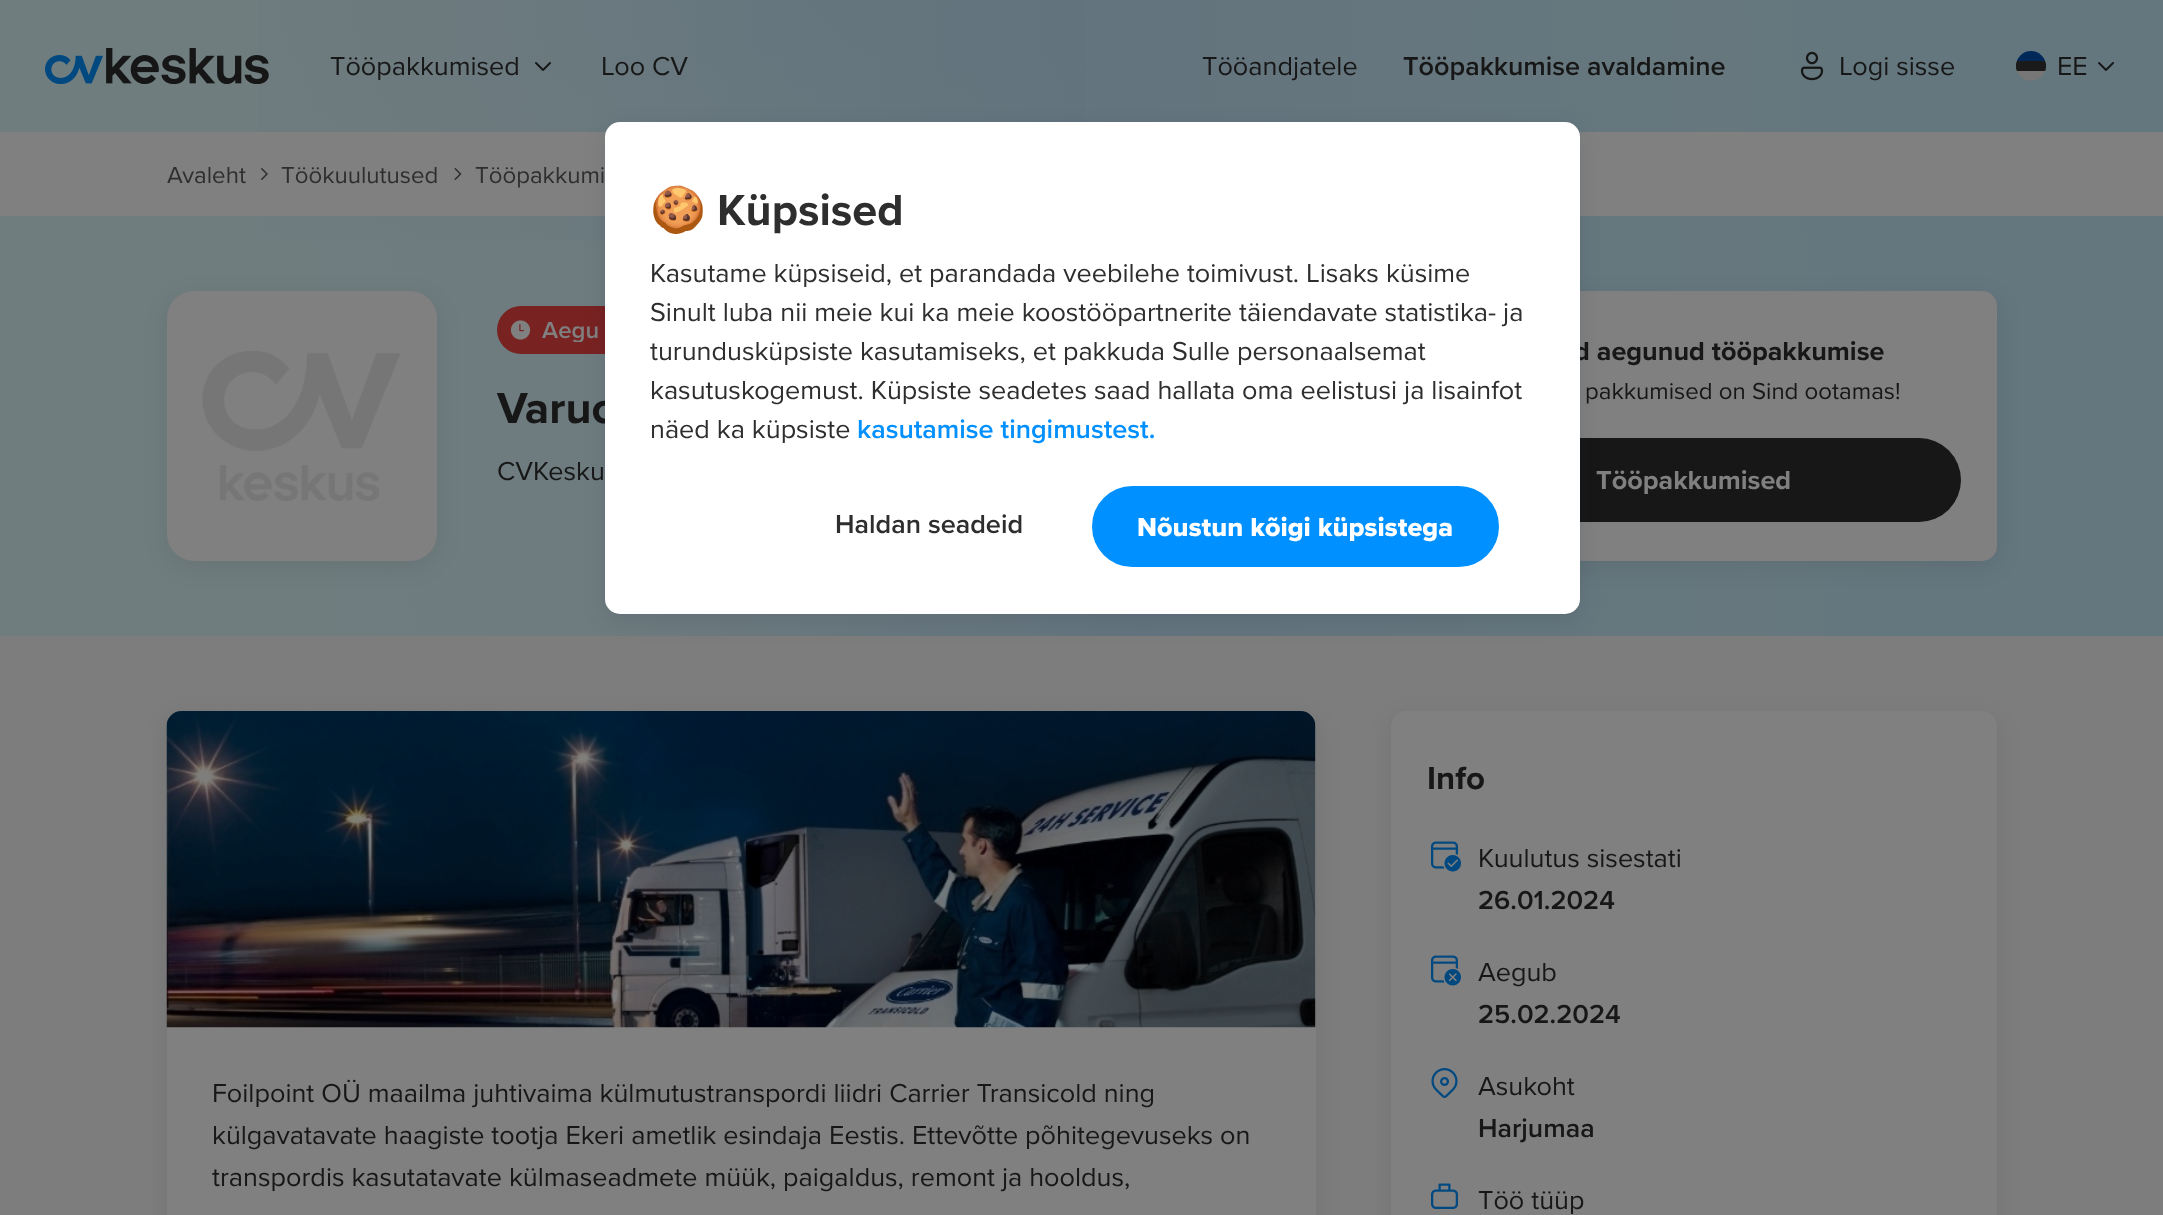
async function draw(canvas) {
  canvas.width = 2163;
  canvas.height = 1215;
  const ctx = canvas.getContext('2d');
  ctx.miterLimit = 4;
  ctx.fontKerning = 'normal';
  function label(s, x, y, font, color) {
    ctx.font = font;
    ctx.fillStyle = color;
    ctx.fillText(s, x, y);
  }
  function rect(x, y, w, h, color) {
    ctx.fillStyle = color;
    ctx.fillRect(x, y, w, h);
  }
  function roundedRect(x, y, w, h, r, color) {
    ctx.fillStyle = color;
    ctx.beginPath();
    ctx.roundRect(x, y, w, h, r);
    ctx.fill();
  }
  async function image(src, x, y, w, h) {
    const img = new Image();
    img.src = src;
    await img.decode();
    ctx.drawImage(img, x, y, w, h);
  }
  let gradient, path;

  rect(0, 0, 2163, 1215, '#7d7d7e');
  gradient = ctx.createLinearGradient(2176, 265, -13, 371);
  gradient.addColorStop(0.09, '#64767e');
  gradient.addColorStop(0.2, '#66787e');
  gradient.addColorStop(0.48, '#64747e');
  gradient.addColorStop(0.69, '#6d7b7f');
  gradient.addColorStop(0.76, '#6f7c7f');
  gradient.addColorStop(0.85, '#707d7f');
  ctx.fillStyle = gradient;
  ctx.fillRect(0, 0, 2163, 636);
  gradient = ctx.createRadialGradient(871, 0, 0, 871, 0, 871);
  gradient.addColorStop(0, '#5e717d66');
  gradient.addColorStop(1, '#5e717d00');
  ctx.fillStyle = gradient;
  ctx.beginPath();
  ctx.rect(258, 0, 828, 241);
  ctx.save();
  ctx.clip();
  ctx.scale(1, 386 / 871);
  ctx.fillRect(0, 0, 2163, 2742);
  ctx.restore();
  await image('assets/img1.png', 45, 48, 224, 36);
  label('Tööpakkumised', 330, 75, '27px Proxima Nova', '#171717');
  await image('assets/img2.png', 535, 62, 16, 9);
  label('Loo CV', 601, 75, '27px Proxima Nova', '#171717');
  label('Tööandjatele', 1202, 75, '27px Proxima Nova', '#171717');
  label('Tööpakkumise avaldamine', 1403, 75, '600 27px Proxima Nova', '#171717');
  await image('assets/img3.png', 1800, 51, 24, 30);
  label('Logi sisse', 1839, 75, '27px Proxima Nova', '#171717');
  ctx.save();
  ctx.beginPath();
  ctx.rect(2016, 51, 30, 30);
  ctx.clip();
  ctx.fillStyle = '#1a1a1a';
  path = new Path2D('M2017 71C2015.5 68 2015.5 64 2017 61L2031 58.5L2045 61C2046.5 64 2046.5 68 2045 71L2031 73.5Z');
  ctx.fill(path);
  ctx.restore();
  ctx.save();
  ctx.beginPath();
  ctx.roundRect(2016, 51, 30, 30, 15);
  ctx.clip();
  rect(2017, 51, 28, 10, '#00295a');
  rect(2017, 71, 28, 10, '#777');
  ctx.restore();
  label('EE', 2057, 75, '27px Proxima Nova', '#171717');
  await image('assets/img4.png', 2098, 62, 16, 9);
  rect(0, 132, 2163, 84, '#808080');
  label('Avaleht', 167, 183, '24px Proxima Nova', '#2e2e2e');
  await image('assets/img5.png', 261, 168, 7, 12);
  label('Töökuulutused', 281, 183, '24px Proxima Nova', '#2e2e2e');
  await image('assets/img6.png', 454, 168, 8, 12);
  label('Tööpakkumi', 475, 183, '24px Proxima Nova', '#2e2e2e');
  ctx.fillStyle = '#00000014';
  ctx.filter = 'blur(12px)';
  ctx.beginPath();
  ctx.roundRect(167, 297, 270, 270, 27);
  ctx.fill();
  ctx.filter = 'none';
  roundedRect(167, 291, 270, 270, 27, '#808080');
  await image('assets/img7.png', 202, 351, 199, 150);
  roundedRect(497, 306, 324, 48, 24, '#782222');
  await image('assets/img8.png', 510, 320, 21, 20);
  ctx.save();
  ctx.beginPath();
  ctx.rect(542, 318, 258, 24);
  ctx.clip();
  label('Aegu', 542, 338, '600 24px Proxima Nova', '#808080');
  ctx.restore();
  label('Varuo', 497, 423, 'bold 45px Proxima Nova', '#171717');
  label('CVKesku', 497, 480, '27px Proxima Nova', '#171717');
  ctx.fillStyle = '#00000014';
  ctx.filter = 'blur(12px)';
  ctx.beginPath();
  ctx.roundRect(1391, 297, 606, 270, 15);
  ctx.fill();
  ctx.filter = 'none';
  roundedRect(1391, 291, 606, 270, 15, '#808080');
  label('d aegunud tööpakkumise', 1574, 360, 'bold 27px Proxima Nova', '#171717');
  label('pakkumised on Sind ootamas!', 1585, 399, '24px Proxima Nova', '#171717');
  roundedRect(1427, 438, 534, 84, 42, '#171717');
  label('Tööpakkumised', 1596, 489, 'bold 27px Proxima Nova', '#808080');
  ctx.fillStyle = '#080f341a';
  ctx.filter = 'blur(10.5px)';
  ctx.beginPath();
  ctx.roundRect(605, 129, 975, 492, 15);
  ctx.fill();
  ctx.filter = 'none';
  roundedRect(605, 122, 975, 492, 15, '#fff');
  label('🍪', 650, 225, 'bold 45px Noto Color Emoji', '#2e2e2e');
  label('Küpsised', 717, 225, 'bold 45px Proxima Nova', '#2e2e2e');
  label('Kasutame küpsiseid, et parandada veebilehe toimivust. Lisaks küsime', 650, 282, '27px Proxima Nova', '#2e2e2e');
  label('Sinult luba nii meie kui ka meie koostööpartnerite täiendavate statistika- ja', 650, 321, '27px Proxima Nova', '#2e2e2e');
  label('turundusküpsiste kasutamiseks, et pakkuda Sulle personaalsemat', 650, 360, '27px Proxima Nova', '#2e2e2e');
  label('kasutuskogemust. Küpsiste seadetes saad hallata oma eelistusi ja lisainfot', 650, 399, '27px Proxima Nova', '#2e2e2e');
  label('näed ka küpsiste', 650, 438, '27px Proxima Nova', '#2e2e2e');
  label('kasutamise tingimustest.', 857, 438, '600 27px Proxima Nova', '#0090ff');
  label('Haldan seadeid', 835, 533, '600 27px Proxima Nova', '#2e2e2e');
  ctx.fillStyle = '#0090ff';
  ctx.beginPath();
  ctx.roundRect(1093.5, 487.5, 404, 78, 39);
  ctx.fill();
  ctx.strokeStyle = '#0090ff';
  ctx.lineWidth = 3;
  ctx.stroke();
  label('Nõustun kõigi küpsistega', 1137, 536, '800 27px Proxima Nova', '#fff');
  ctx.fillStyle = '#00000014';
  ctx.filter = 'blur(12px)';
  ctx.beginPath();
  ctx.roundRect(167, 717, 1149, 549, 15);
  ctx.fill();
  ctx.filter = 'none';
  roundedRect(167, 711, 1149, 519, 15, '#808080');
  await image('assets/img9.png', 166, 711, 1150, 317);
  label('Foilpoint OÜ maailma juhtivaima külmutustranspordi liidri Carrier Transicold ning', 212, 1102, '27px Proxima Nova', '#171717');
  label('külgavatavate haagiste tootja Ekeri ametlik esindaja Eestis. Ettevõtte põhitegevuseks on', 212, 1144, '27px Proxima Nova', '#171717');
  label('transpordis kasutatavate külmaseadmete müük, paigaldus, remont ja hooldus,', 212, 1186, '27px Proxima Nova', '#171717');
  ctx.fillStyle = '#00000014';
  ctx.filter = 'blur(12px)';
  ctx.beginPath();
  ctx.roundRect(1391, 717, 606, 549, 15);
  ctx.fill();
  ctx.filter = 'none';
  roundedRect(1391, 711, 606, 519, 15, '#808080');
  label('Info', 1427, 789, 'bold 33px Proxima Nova', '#171717');
  await image('assets/img10.png', 1431, 841, 30, 31);
  label('Kuulutus sisestati', 1478, 867, '27px Proxima Nova', '#171717');
  label('26.01.2024', 1478, 909, '600 27px Proxima Nova', '#171717');
  await image('assets/img11.png', 1431, 955, 30, 31);
  label('Aegub', 1478, 981, '27px Proxima Nova', '#171717');
  label('25.02.2024', 1478, 1023, '600 27px Proxima Nova', '#171717');
  await image('assets/img12.png', 1431, 1068, 27, 30);
  label('Asukoht', 1478, 1095, '27px Proxima Nova', '#171717');
  label('Harjumaa', 1478, 1137, '600 27px Proxima Nova', '#171717');
  await image('assets/img13.png', 1431, 1183, 27, 26);
  label('Töö tüüp', 1478, 1209, '27px Proxima Nova', '#171717');
}

draw(document.querySelector('canvas'));
